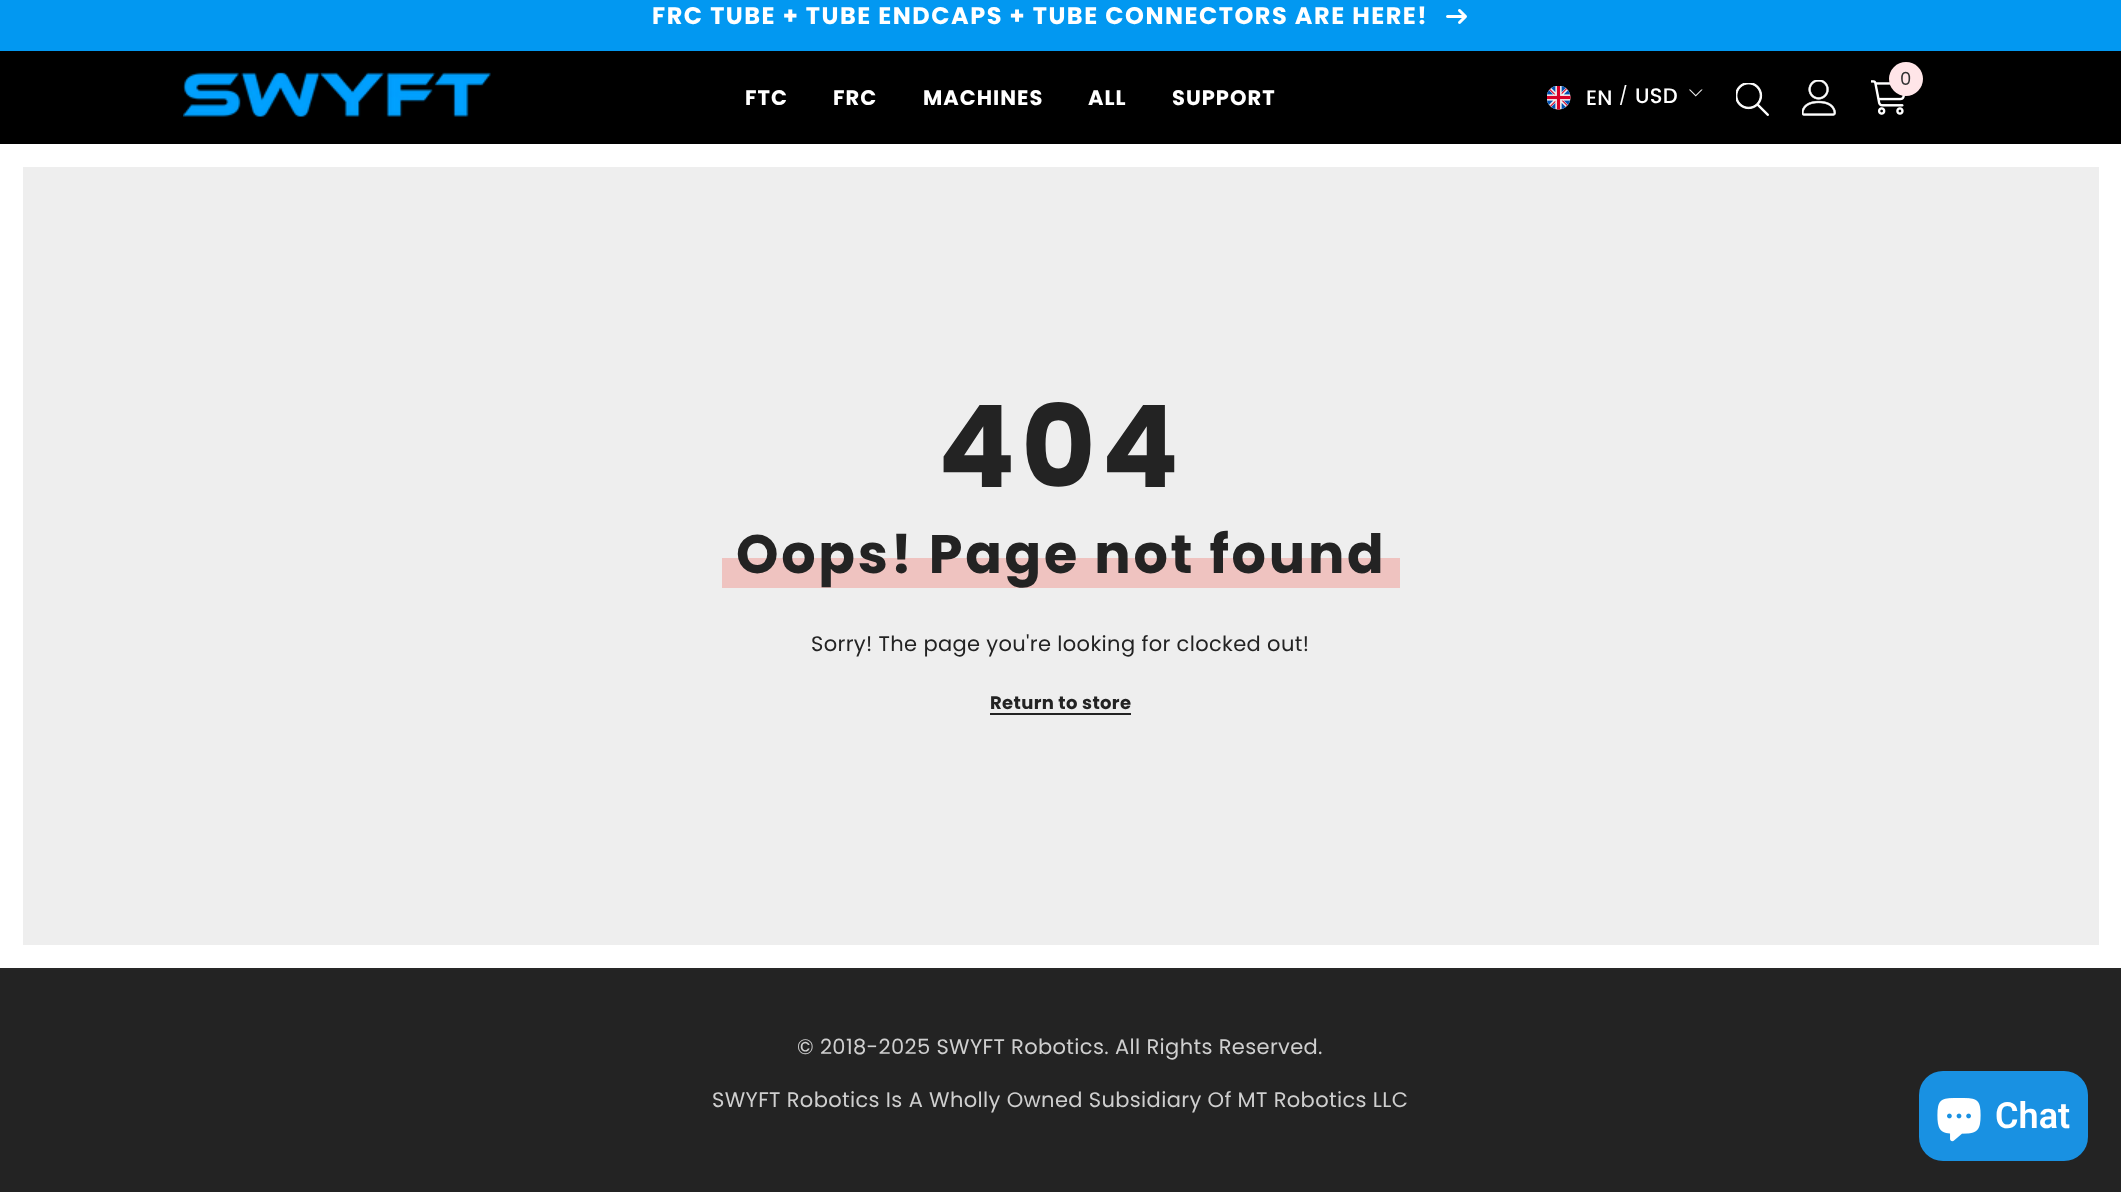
async function draw(canvas) {
  canvas.width = 2121;
  canvas.height = 1192;
  const ctx = canvas.getContext('2d');
  ctx.miterLimit = 4;
  ctx.fontKerning = 'normal';
  function label(s, x, y, font, color) {
    ctx.font = font;
    ctx.fillStyle = color;
    ctx.fillText(s, x, y);
  }
  function rect(x, y, w, h, color) {
    ctx.fillStyle = color;
    ctx.fillRect(x, y, w, h);
  }
  function roundedRect(x, y, w, h, r, color) {
    ctx.fillStyle = color;
    ctx.beginPath();
    ctx.roundRect(x, y, w, h, r);
    ctx.fill();
  }
  async function image(src, x, y, w, h) {
    const img = new Image();
    img.src = src;
    await img.decode();
    ctx.drawImage(img, x, y, w, h);
  }

  rect(0, 0, 2121, 1192, '#fff');
  rect(0, 0, 2121, 51, '#0298f1');
  ctx.letterSpacing = '1.5px';
  label('FRC TUBE + TUBE ENDCAPS + TUBE CONNECTORS ARE HERE!', 652, 24, 'bold 24px Poppins', '#fff');
  await image('assets/img1.png', 1446, 9, 21, 15);
  rect(0, 51, 2121, 93, '#000');
  await image('assets/img2.png', 183, 72, 308, 45);
  ctx.letterSpacing = '1px';
  label('FTC', 745, 105, 'bold 21px Poppins', '#fff');
  label('FRC', 833, 105, 'bold 21px Poppins', '#fff');
  label('MACHINES', 923, 105, 'bold 21px Poppins', '#fff');
  label('ALL', 1088, 105, 'bold 21px Poppins', '#fff');
  label('SUPPORT', 1172, 105, 'bold 21px Poppins', '#fff');
  await image('assets/img3.png', 1871, 80, 35, 35);
  ctx.fillStyle = '#ffe5e8';
  ctx.beginPath();
  ctx.arc(1906, 79, 17, 0, 2 * Math.PI);
  ctx.fill();
  ctx.letterSpacing = '0px';
  label('0', 1900, 85, '18px Poppins', '#323232');
  await image('assets/img4.png', 1547, 86, 24, 24);
  ctx.letterSpacing = '0.35px';
  label('EN', 1586, 105, '500 21px Poppins', '#fff');
  label('/', 1619, 102, '18px Poppins', '#fff');
  label('USD', 1635, 103, '500 21px Poppins', '#fff');
  await image('assets/img5.png', 1689, 89, 14, 8);
  await image('assets/img6.png', 1736, 83, 33, 33);
  await image('assets/img7.png', 1802, 80, 34, 36);
  rect(23, 167, 2076, 778, '#eee');
  ctx.letterSpacing = '6px';
  label('404', 938, 487, 'bold 114px Poppins', '#232323');
  rect(722, 558, 678, 30, '#efc3c0');
  ctx.letterSpacing = '2.75px';
  label('Oops! Page not found', 736, 573, 'bold 54px Poppins', '#232323');
  ctx.letterSpacing = '0.35px';
  label('Sorry! The page you\'re looking for clocked out!', 811, 651, '21px Poppins', '#232323');
  label('Return to store', 990, 709, 'bold 18px Poppins', '#232323');
  rect(990, 713, 141, 2, '#232323');
  rect(0, 970, 2121, 222, '#232323');
  rect(0, 968, 2121, 2, '#282828');
  label('© 2018-2025 SWYFT Robotics. All Rights Reserved.', 797, 1054, '21px Poppins', '#cfcfcf');
  label('SWYFT Robotics Is A Wholly Owned Subsidiary Of MT Robotics LLC', 712, 1107, '21px Poppins', '#cfcfcf');
  roundedRect(1919, 1071, 169, 90, 24, '#1991e2');
  await image('assets/img8.png', 1937, 1098, 44, 44);
  ctx.letterSpacing = '0px';
  label('Chat', 1995, 1128, '600 36px Roboto', '#fff');
}

draw(document.querySelector('canvas'));
